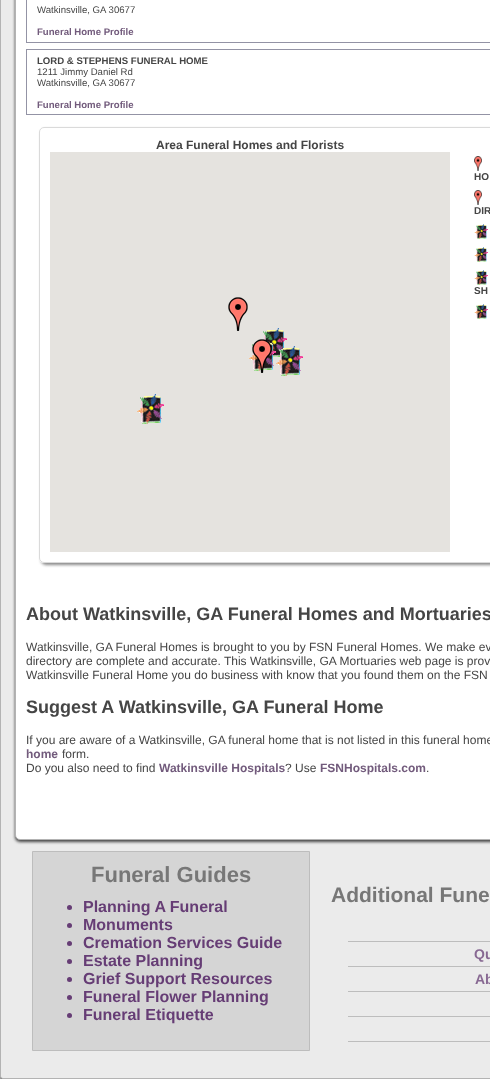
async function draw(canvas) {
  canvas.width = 490;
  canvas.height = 1079;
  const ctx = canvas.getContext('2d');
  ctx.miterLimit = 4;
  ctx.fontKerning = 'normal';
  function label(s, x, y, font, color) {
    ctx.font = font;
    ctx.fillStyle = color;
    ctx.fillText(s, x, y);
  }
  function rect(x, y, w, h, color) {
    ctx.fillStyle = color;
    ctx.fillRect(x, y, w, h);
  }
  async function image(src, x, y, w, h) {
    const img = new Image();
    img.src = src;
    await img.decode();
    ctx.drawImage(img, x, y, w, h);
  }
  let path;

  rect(0, 0, 490, 1079, '#fff');
  ctx.fillStyle = '#454545';
  ctx.filter = 'blur(1.5px)';
  ctx.beginPath();
  ctx.roundRect(0, -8, 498, 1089, 3);
  ctx.fill();
  ctx.filter = 'none';
  ctx.fillStyle = '#ebebeb';
  path = new Path2D('M.5-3.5H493.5V1076C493.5 1077.5 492.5 1078.5 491 1078.5H3C1.5 1078.5 .5 1077.5 .5 1076Z');
  ctx.fill(path);
  ctx.strokeStyle = '#b3b3b3';
  ctx.stroke(path);
  ctx.fillStyle = '#454545';
  ctx.filter = 'blur(1.5px)';
  ctx.beginPath();
  ctx.roundRect(15, -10, 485, 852, 5);
  ctx.fill();
  ctx.filter = 'none';
  ctx.fillStyle = '#fff';
  ctx.beginPath();
  ctx.roundRect(15.5, -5.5, 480, 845, 4.5);
  ctx.fill();
  ctx.stroke();
  ctx.strokeStyle = '#9393a5';
  ctx.strokeRect(26.5, -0.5, 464, 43);
  label('Watkinsville, GA 30677', 37, 13, '9.6px Liberation Sans', '#454545');
  label('Funeral Home Profile', 37, 35, 'bold 9.6px Liberation Sans', '#725b7c');
  ctx.strokeRect(26.5, 49.5, 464, 65);
  label('LORD & STEPHENS FUNERAL HOME', 37, 64, 'bold 9.6px Liberation Sans', '#454545');
  label('1211 Jimmy Daniel Rd', 37, 75, '9.6px Liberation Sans', '#454545');
  label('Watkinsville, GA 30677', 37, 86, '9.6px Liberation Sans', '#454545');
  label('Funeral Home Profile', 37, 108, 'bold 9.6px Liberation Sans', '#725b7c');
  ctx.save();
  path = new Path2D('M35 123H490V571H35ZM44 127H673C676 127 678 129 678 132V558C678 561 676 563 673 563H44C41 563 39 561 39 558V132C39 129 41 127 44 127Z');
  ctx.clip(path, 'evenodd');
  ctx.fillStyle = '#888';
  ctx.filter = 'blur(1.5px)';
  ctx.beginPath();
  ctx.roundRect(41, 129, 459, 436, 5);
  ctx.fill();
  ctx.filter = 'none';
  ctx.restore();
  ctx.beginPath();
  ctx.roundRect(39.5, 127.5, 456, 435, 4.5);
  ctx.strokeStyle = '#dadada';
  ctx.stroke();
  label('Area Funeral Homes and Florists', 156, 149, 'bold 12px Liberation Sans', '#454545');
  rect(50, 152, 400, 400, '#e5e3df');
  await image('assets/img1.png', 228, 297, 20, 34);
  await image('assets/img3.png', 263, 328, 24, 29);
  await image('assets/img4.png', 249, 341, 27, 30);
  await image('assets/img2.png', 252, 339, 20, 34);
  await image('assets/img5.png', 276, 346, 27, 30);
  await image('assets/img6.png', 137, 394, 27, 30);
  await image('assets/img7.png', 474, 156, 8, 15);
  label('HO', 474, 180, 'bold 10px Liberation Sans', '#454545');
  await image('assets/img7.png', 474, 190, 8, 15);
  label('DIR', 474, 214, 'bold 10px Liberation Sans', '#454545');
  await image('assets/img8.png', 474, 224, 14, 15);
  await image('assets/img8.png', 474, 247, 14, 15);
  await image('assets/img8.png', 474, 270, 14, 15);
  label('SH', 474, 294, 'bold 10px Liberation Sans', '#454545');
  await image('assets/img8.png', 474, 304, 14, 15);
  label('About Watkinsville, GA Funeral Homes and Mortuaries', 26, 620, 'bold 18px Liberation Sans', '#454545');
  label('Watkinsville, GA Funeral Homes is brought to you by FSN Funeral Homes. We make ev', 26, 651, '12px Liberation Sans', '#454545');
  label('directory are complete and accurate. This Watkinsville, GA Mortuaries web page is prov', 26, 665, '12px Liberation Sans', '#454545');
  label('Watkinsville Funeral Home you do business with know that you found them on the FSN', 26, 679, '12px Liberation Sans', '#454545');
  label('Suggest A Watkinsville, GA Funeral Home', 26, 713, 'bold 18px Liberation Sans', '#454545');
  label('If you are aware of a Watkinsville, GA funeral home that is not listed in this funeral home', 26, 744, '12px Liberation Sans', '#454545');
  label('home', 26, 758, 'bold 12px Liberation Sans', '#725b7c');
  label('form.', 62, 758, '12px Liberation Sans', '#454545');
  label('Do you also need to find', 26, 772, '12px Liberation Sans', '#454545');
  label('Watkinsville Hospitals', 159, 772, 'bold 12px Liberation Sans', '#725b7c');
  label('? Use', 285, 772, '12px Liberation Sans', '#454545');
  label('FSNHospitals.com', 320, 772, 'bold 12px Liberation Sans', '#725b7c');
  label('.', 426, 772, '12px Liberation Sans', '#454545');
  ctx.fillStyle = '#d5d5d5';
  ctx.beginPath();
  ctx.rect(32.5, 851.5, 277, 199);
  ctx.fill();
  ctx.strokeStyle = '#bdbdbd';
  ctx.stroke();
  label('Funeral Guides', 91, 882, 'bold 22px Liberation Sans', '#777');
  ctx.fillStyle = '#663d75';
  ctx.beginPath();
  ctx.arc(69.5, 907.5, 2.5, 0, 2 * Math.PI);
  ctx.fill();
  label('Planning A Funeral', 83, 912, 'bold 16px Liberation Sans', '#663d75');
  ctx.beginPath();
  ctx.arc(69.5, 925.5, 2.5, 0, 2 * Math.PI);
  ctx.fill();
  label('Monuments', 83, 930, 'bold 16px Liberation Sans', '#663d75');
  ctx.beginPath();
  ctx.arc(69.5, 943.5, 2.5, 0, 2 * Math.PI);
  ctx.fill();
  label('Cremation Services Guide', 83, 948, 'bold 16px Liberation Sans', '#663d75');
  ctx.beginPath();
  ctx.arc(69.5, 961.5, 2.5, 0, 2 * Math.PI);
  ctx.fill();
  label('Estate Planning', 83, 966, 'bold 16px Liberation Sans', '#663d75');
  ctx.beginPath();
  ctx.arc(69.5, 979.5, 2.5, 0, 2 * Math.PI);
  ctx.fill();
  label('Grief Support Resources', 83, 984, 'bold 16px Liberation Sans', '#663d75');
  ctx.beginPath();
  ctx.arc(69.5, 997.5, 2.5, 0, 2 * Math.PI);
  ctx.fill();
  label('Funeral Flower Planning', 83, 1002, 'bold 16px Liberation Sans', '#663d75');
  ctx.beginPath();
  ctx.arc(69.5, 1015.5, 2.5, 0, 2 * Math.PI);
  ctx.fill();
  label('Funeral Etiquette', 83, 1020, 'bold 16px Liberation Sans', '#663d75');
  label('Additional Fune', 331, 902, 'bold 21px Liberation Sans', '#777');
  rect(348, 941, 142, 1, '#bdbdbd');
  rect(348, 966, 142, 1, '#bdbdbd');
  label('Qu', 474, 959, 'bold 14px Liberation Sans', '#876892');
  rect(348, 991, 142, 1, '#bdbdbd');
  label('Ab', 475, 984, 'bold 14px Liberation Sans', '#876892');
  rect(348, 1016, 142, 1, '#bdbdbd');
  rect(348, 1041, 142, 1, '#bdbdbd');
}

draw(document.querySelector('canvas'));
